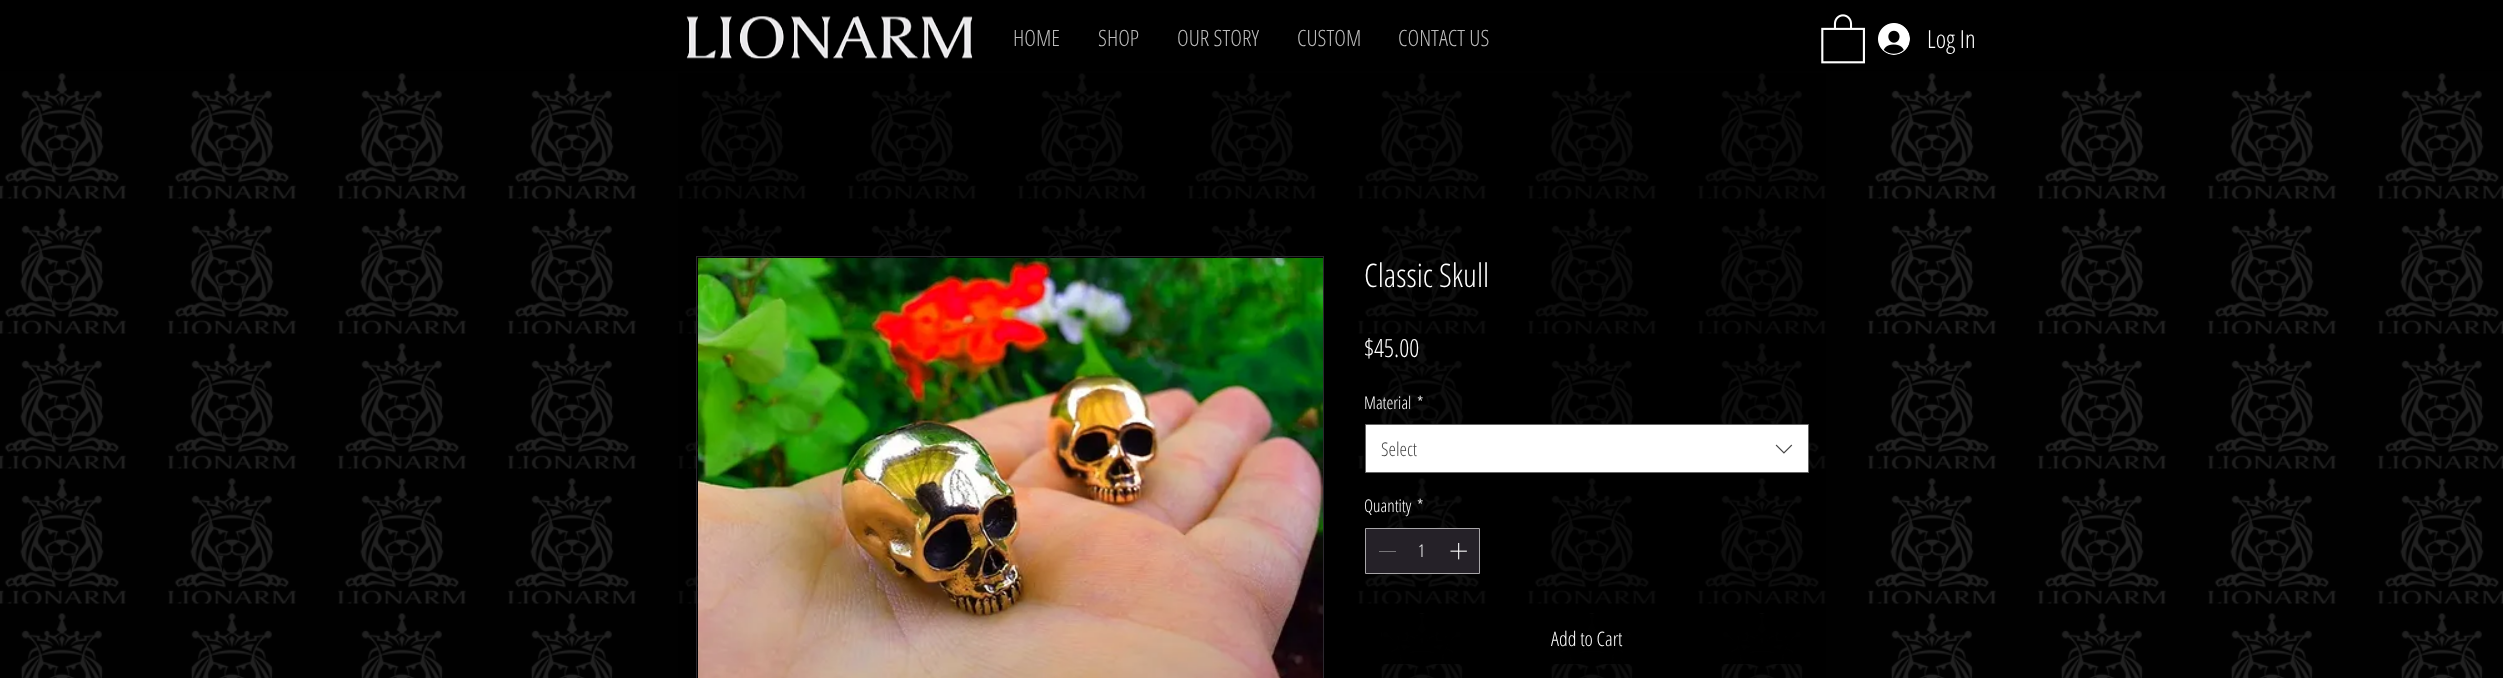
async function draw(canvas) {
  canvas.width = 2503;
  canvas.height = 678;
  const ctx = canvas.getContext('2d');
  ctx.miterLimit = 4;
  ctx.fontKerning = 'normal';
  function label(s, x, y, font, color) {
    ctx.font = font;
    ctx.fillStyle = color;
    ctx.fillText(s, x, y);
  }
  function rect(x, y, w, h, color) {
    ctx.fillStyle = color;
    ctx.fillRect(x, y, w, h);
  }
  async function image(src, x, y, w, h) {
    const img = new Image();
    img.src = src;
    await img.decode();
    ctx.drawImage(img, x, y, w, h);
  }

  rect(0, 0, 2503, 678, '#000');
  await image('assets/img1.png', 686, 16, 287, 43);
  label('HOME', 1013, 46, '300 22.5px Open Sans Condensed', '#bdbdbd');
  label('SHOP', 1098, 46, '300 22.5px Open Sans Condensed', '#bdbdbd');
  label('OUR STORY', 1177, 46, '300 22.5px Open Sans Condensed', '#bdbdbd');
  label('CUSTOM', 1297, 46, '300 22.5px Open Sans Condensed', '#bdbdbd');
  label('CONTACT US', 1398, 46, '300 22.5px Open Sans Condensed', '#bdbdbd');
  await image('assets/img2.png', 1821, 14, 44, 50);
  await image('assets/img3.png', 1878, 23, 32, 32);
  label('Log In', 1927, 48, '300 25px Open Sans Condensed', '#fff');
  await image('assets/img7.png', 0, 71, 2503, 607);
  rect(678, 73, 1148, 605, '#0000008f');
  ctx.strokeStyle = '#2f2b32f0';
  ctx.strokeRect(696.5, 256.5, 627, 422);
  await image('assets/img4.png', 698, 258, 625, 420);
  label('Classic Skull', 1364, 287, '300 32.5px Open Sans Condensed', '#fff');
  label('$45.00', 1364, 357, '300 25px Open Sans Condensed', '#fff');
  label('Material', 1364, 409, '300 17.5px Open Sans Condensed', '#fff');
  label('*', 1417, 409, '300 17.5px Open Sans Condensed', '#fff');
  ctx.beginPath();
  ctx.rect(1365.5, 424.5, 443, 48);
  ctx.fill();
  ctx.strokeStyle = '#666';
  ctx.stroke();
  label('Select', 1381, 456, '300 19px Open Sans Condensed', '#444');
  await image('assets/img5.png', 1775, 444, 18, 10);
  label('Quantity', 1364, 512, '300 17.5px Open Sans Condensed', '#fff');
  label('*', 1417, 512, '300 17.5px Open Sans Condensed', '#fff');
  ctx.fillStyle = '#252128';
  ctx.beginPath();
  ctx.rect(1365.5, 528.5, 114, 45);
  ctx.fill();
  ctx.strokeStyle = '#a8a6a9';
  ctx.stroke();
  rect(1379, 551, 17, 1, '#767478');
  label('1', 1418, 557, '300 17.5px Open Sans Condensed', '#fff');
  await image('assets/img6.png', 1450, 542, 17, 18);
  rect(1382, 614, 420, 50, '#000000eb');
  label('Add to Cart', 1551, 646, '300 20px Open Sans Condensed', '#fff');
}

draw(document.querySelector('canvas'));
